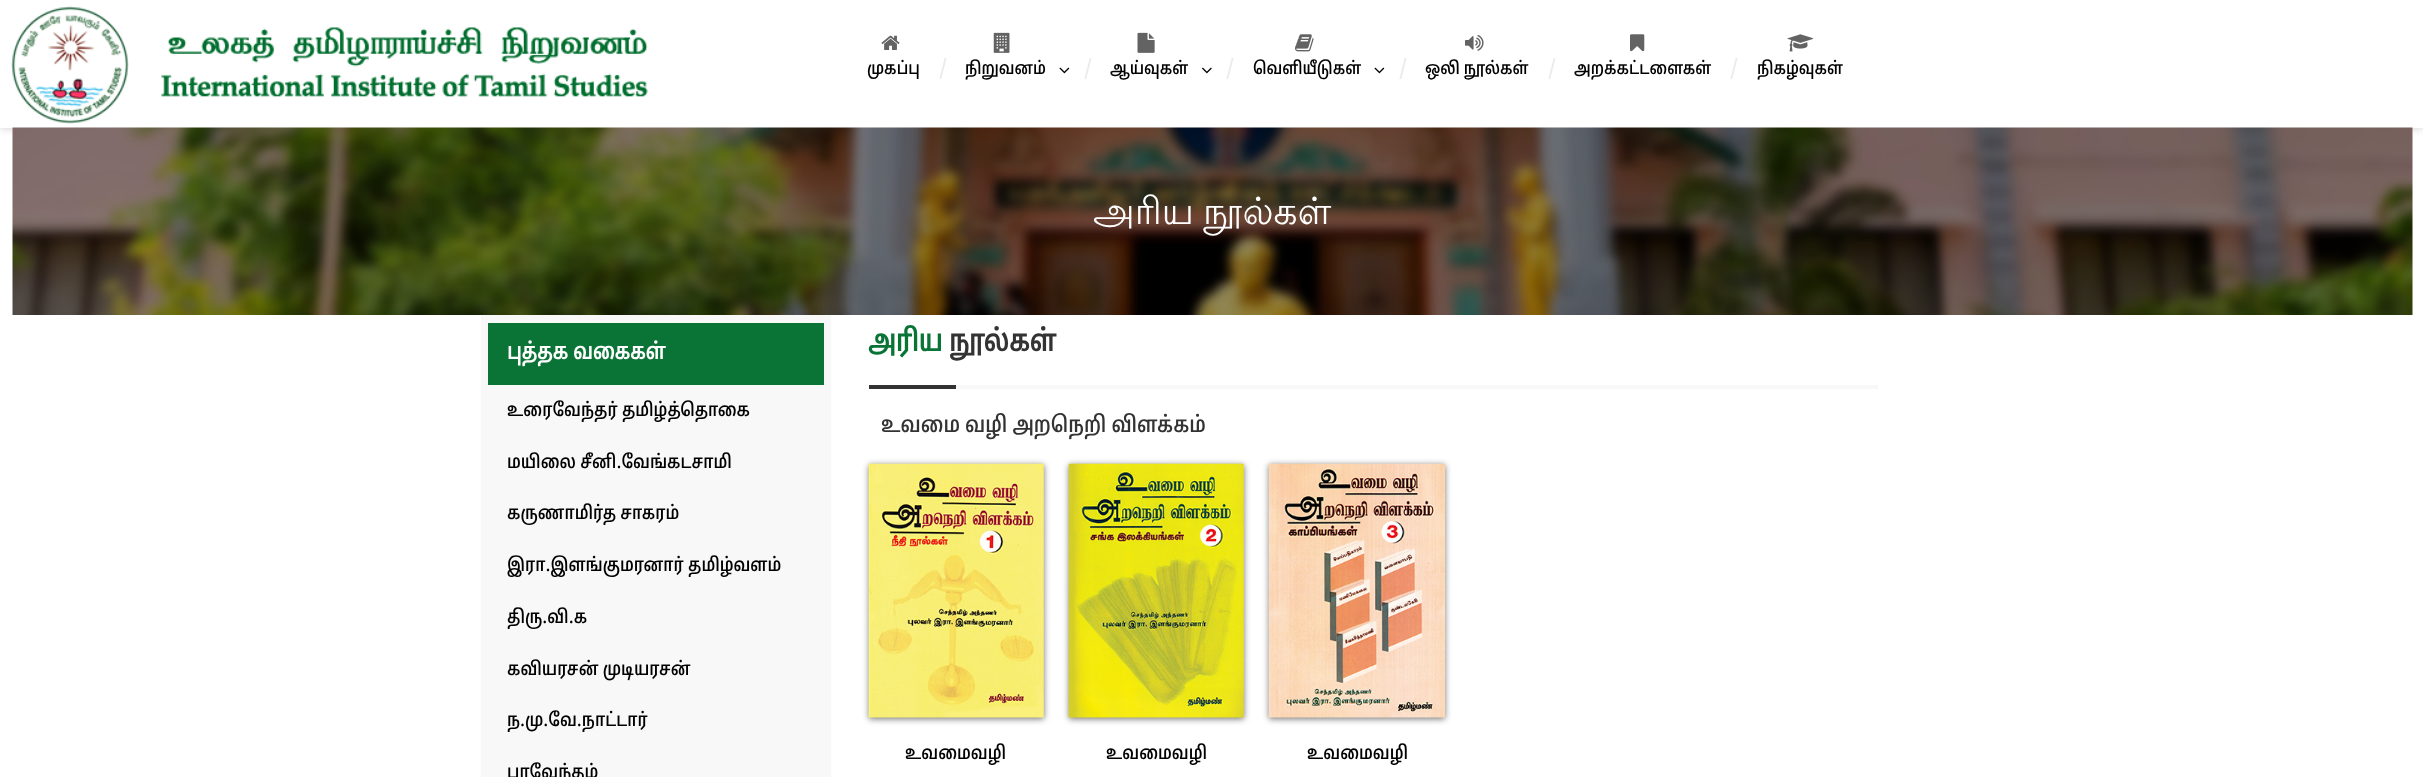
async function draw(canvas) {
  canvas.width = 2423;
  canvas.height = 777;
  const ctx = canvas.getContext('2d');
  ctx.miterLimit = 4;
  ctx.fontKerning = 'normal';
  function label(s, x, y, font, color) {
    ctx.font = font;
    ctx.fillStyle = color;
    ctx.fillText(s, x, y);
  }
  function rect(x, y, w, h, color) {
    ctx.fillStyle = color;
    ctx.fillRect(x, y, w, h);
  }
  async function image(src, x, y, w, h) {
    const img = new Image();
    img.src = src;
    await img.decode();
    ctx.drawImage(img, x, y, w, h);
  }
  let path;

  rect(0, 0, 2423, 777, '#fff');
  ctx.save();
  path = new Path2D('M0 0H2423V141H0ZM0 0H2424V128H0Z');
  ctx.clip(path, 'evenodd');
  ctx.fillStyle = '#ccc';
  ctx.filter = 'blur(4px)';
  ctx.beginPath();
  ctx.rect(0, 0, 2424, 128);
  ctx.fill();
  ctx.filter = 'none';
  ctx.restore();
  await image('assets/img1.png', 11, 6, 637, 118);
  await image('assets/img2.png', 881, 35, 19, 15);
  label('முகப்பு', 867, 74, '500 17.5px Noto Sans Tamil', '#000');
  label('/', 939, 74, '500 20px Noto Sans Tamil', '#ececec');
  await image('assets/img3.png', 993, 32, 17, 21);
  label('நிறுவனம்', 965, 74, '500 17.5px Noto Sans Tamil', '#000');
  await image('assets/img4.png', 1059, 67, 11, 7);
  label('/', 1084, 74, '500 20px Noto Sans Tamil', '#ececec');
  await image('assets/img5.png', 1137, 32, 18, 21);
  label('ஆய்வுகள்', 1110, 74, '500 17.5px Noto Sans Tamil', '#000');
  await image('assets/img6.png', 1202, 67, 10, 7);
  label('/', 1226, 74, '500 20px Noto Sans Tamil', '#ececec');
  await image('assets/img7.png', 1295, 34, 19, 18);
  label('வெளியீடுகள்', 1253, 74, '500 17.5px Noto Sans Tamil', '#000');
  await image('assets/img4.png', 1374, 67, 11, 7);
  label('/', 1399, 74, '500 20px Noto Sans Tamil', '#ececec');
  await image('assets/img8.png', 1465, 35, 19, 16);
  label('ஒலி நூல்கள்', 1425, 74, '500 17.5px Noto Sans Tamil', '#000');
  label('/', 1548, 74, '500 20px Noto Sans Tamil', '#ececec');
  await image('assets/img9.png', 1630, 34, 15, 18);
  label('அறக்கட்டளைகள்', 1574, 74, '500 17.5px Noto Sans Tamil', '#000');
  label('/', 1730, 74, '500 20px Noto Sans Tamil', '#ececec');
  await image('assets/img10.png', 1787, 34, 27, 18);
  label('நிகழ்வுகள்', 1757, 74, '500 17.5px Noto Sans Tamil', '#000');
  await image('assets/img11.png', 12, 127, 2401, 188);
  ctx.wordSpacing = '-2px';
  label('அரிய நூல்கள்', 1093, 224, '37.5px Lohit Tamil', '#fff');
  rect(481, 315, 350, 462, '#f8f8f8');
  rect(488, 323, 336, 62, '#0a7436');
  ctx.wordSpacing = '0px';
  label('புத்தக வகைகள்', 507, 359, 'bold 22.5px Noto Sans Tamil', '#fff');
  label('உரைவேந்தர் தமிழ்த்தொகை', 507, 416, '500 18.75px Noto Sans Tamil', '#000');
  label('மயிலை சீனி.வேங்கடசாமி', 507, 468, '500 18.75px Noto Sans Tamil', '#000');
  label('கருணாமிர்த சாகரம்', 507, 519, '500 18.75px Noto Sans Tamil', '#000');
  label('இரா.இளங்குமரனார் தமிழ்வளம்', 507, 571, '500 18.75px Noto Sans Tamil', '#000');
  label('திரு.வி.க', 507, 623, '500 18.75px Noto Sans Tamil', '#000');
  label('கவியரசன் முடியரசன்', 507, 675, '500 18.75px Noto Sans Tamil', '#000');
  label('ந.மு.வே.நாட்டார்', 507, 726, '500 18.75px Noto Sans Tamil', '#000');
  label('பாவேந்தம்', 507, 778, '500 18.75px Noto Sans Tamil', '#000');
  rect(956, 385, 922, 4, '#f8f8f8');
  label('அரிய', 868, 351, 'bold 30px Noto Sans Tamil', '#0a7436');
  label('நூல்கள்', 949, 351, 'bold 30px Noto Sans Tamil', '#333');
  rect(869, 385, 87, 4, '#333');
  label('உவமை வழி அறநெறி விளக்கம்', 881, 432, '500 22.5px Noto Sans Tamil', '#333');
  ctx.fillStyle = '#323232ab';
  ctx.filter = 'blur(3px)';
  ctx.beginPath();
  ctx.rect(869, 465, 175, 254);
  ctx.fill();
  ctx.filter = 'none';
  await image('assets/img12.png', 868, 463, 176, 255);
  label('உவமைவழி', 905, 759, '500 18.75px Noto Sans Tamil', '#000');
  ctx.fillStyle = '#323232ab';
  ctx.filter = 'blur(3px)';
  ctx.beginPath();
  ctx.rect(1069, 465, 175, 254);
  ctx.fill();
  ctx.filter = 'none';
  await image('assets/img13.png', 1068, 463, 176, 255);
  label('உவமைவழி', 1106, 759, '500 18.75px Noto Sans Tamil', '#000');
  ctx.fillStyle = '#323232ab';
  ctx.filter = 'blur(3px)';
  ctx.beginPath();
  ctx.rect(1269, 465, 176, 254);
  ctx.fill();
  ctx.filter = 'none';
  await image('assets/img14.png', 1268, 463, 177, 255);
  label('உவமைவழி', 1307, 759, '500 18.75px Noto Sans Tamil', '#000');
}

draw(document.querySelector('canvas'));
